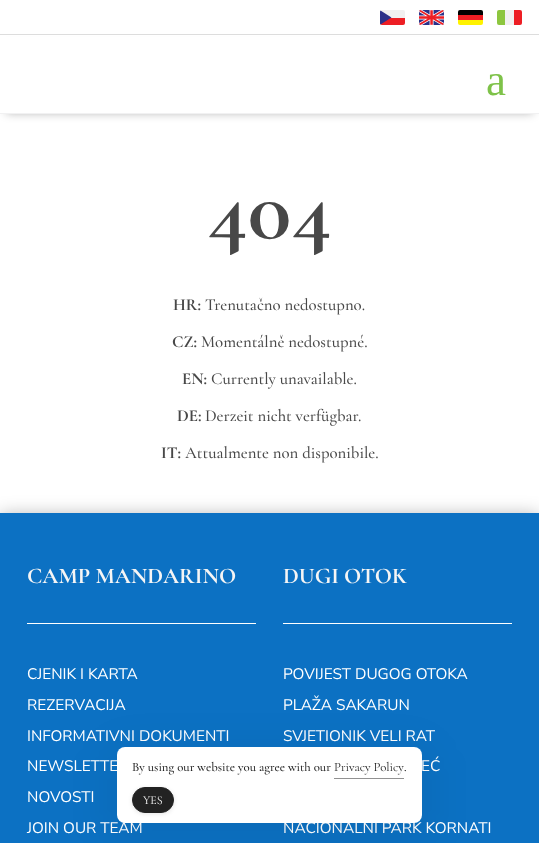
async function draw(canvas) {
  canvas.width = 539;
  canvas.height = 843;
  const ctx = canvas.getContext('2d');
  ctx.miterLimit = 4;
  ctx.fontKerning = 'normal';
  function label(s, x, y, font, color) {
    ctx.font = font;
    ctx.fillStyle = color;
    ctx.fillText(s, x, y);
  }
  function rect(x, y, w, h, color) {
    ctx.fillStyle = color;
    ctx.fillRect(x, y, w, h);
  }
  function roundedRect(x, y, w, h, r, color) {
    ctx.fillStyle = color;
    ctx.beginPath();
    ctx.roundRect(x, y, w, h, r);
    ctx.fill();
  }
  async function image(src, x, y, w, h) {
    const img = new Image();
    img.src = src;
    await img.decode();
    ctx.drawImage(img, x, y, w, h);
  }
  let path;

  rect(0, 0, 539, 843, '#fff');
  rect(0, 34, 539, 1, '#ddd');
  ctx.fillStyle = '#f1f0f0';
  ctx.beginPath();
  ctx.roundRect(380, 10, 25, 8, [2, 2, 0, 0]);
  ctx.fill();
  ctx.fillStyle = '#ed1e24';
  ctx.beginPath();
  ctx.roundRect(380, 18, 25, 7, [0, 0, 2, 2]);
  ctx.fill();
  ctx.save();
  ctx.beginPath();
  ctx.rect(380, 10, 25, 15);
  ctx.clip();
  ctx.fillStyle = '#2c3189';
  path = new Path2D('M380.5 10.5C379.5 11.5 380 16 380 17.5C380 19 379.5 23.5 380.5 24.5L391.5 17.5Z');
  ctx.fill(path);
  ctx.restore();
  await image('assets/img1.png', 419, 10, 25, 15);
  ctx.fillStyle = '#000';
  ctx.beginPath();
  ctx.roundRect(458, 10, 25, 5, [2, 2, 0, 0]);
  ctx.fill();
  rect(458, 15, 25, 5, '#ed1e24');
  ctx.fillStyle = '#fff200';
  ctx.beginPath();
  ctx.roundRect(458, 20, 25, 5, [0, 0, 2, 2]);
  ctx.fill();
  ctx.fillStyle = '#8dc63f';
  ctx.beginPath();
  ctx.roundRect(497, 10, 8, 15, [2, 0, 0, 2]);
  ctx.fill();
  rect(505, 10, 9, 15, '#f1f0f0');
  ctx.fillStyle = '#ed1e24';
  ctx.beginPath();
  ctx.roundRect(514, 10, 8, 15, [0, 2, 2, 0]);
  ctx.fill();
  ctx.fillStyle = '#0000004d';
  ctx.filter = 'blur(5px)';
  ctx.beginPath();
  ctx.rect(6, 46, 527, 67);
  ctx.fill();
  ctx.filter = 'none';
  rect(0, 37, 539, 76, '#fff');
  rect(0, 113, 539, 1, '#f1f1f2');
  label('a', 486, 95, '45px Liberation Serif', '#7ec249');
  label('404', 207, 238, 'bold 90px Cormorant Garamond', '#484848');
  label('HR:', 173, 310, 'bold 16.75px Cormorant Garamond', '#484848');
  label('Trenutačno nedostupno.', 205, 310, '500 16.75px Cormorant Garamond', '#484848');
  label('CZ:', 172, 347, 'bold 16.75px Cormorant Garamond', '#484848');
  label('Momentálně nedostupné.', 201, 347, '500 16.75px Cormorant Garamond', '#484848');
  label('EN:', 182, 384, 'bold 16.75px Cormorant Garamond', '#484848');
  label('Currently unavailable.', 211, 384, '500 16.75px Cormorant Garamond', '#484848');
  label('DE:', 177, 421, 'bold 16.75px Cormorant Garamond', '#484848');
  label('Derzeit nicht verfügbar.', 205, 421, '500 16.75px Cormorant Garamond', '#484848');
  label('IT:', 161, 458, 'bold 16.75px Cormorant Garamond', '#484848');
  label('Attualmente non disponibile.', 185, 458, '500 16.75px Cormorant Garamond', '#484848');
  ctx.fillStyle = '#0000004d';
  ctx.filter = 'blur(9px)';
  ctx.beginPath();
  ctx.rect(0, 515, 539, 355);
  ctx.fill();
  ctx.filter = 'none';
  rect(0, 513, 539, 330, '#0c71c3');
  label('CAMP MANDARINO', 27, 583, 'bold 22.5px Cormorant Garamond', '#f5f5f5');
  rect(27, 623, 229, 1, '#fff');
  label('CJENIK I KARTA', 27, 679, '15.4px Nunito Sans', '#fff');
  label('REZERVACIJA', 27, 710, '15.4px Nunito Sans', '#fff');
  label('INFORMATIVNI DOKUMENTI', 27, 741, '15.4px Nunito Sans', '#fff');
  label('NEWSLETTE', 27, 771, '15.4px Nunito Sans', '#fff');
  label('NOVOSTI', 27, 802, '15.4px Nunito Sans', '#fff');
  label('JOIN OUR TEAM', 27, 833, '15.4px Nunito Sans', '#fff');
  label('DUGI OTOK', 283, 583, 'bold 22.5px Cormorant Garamond', '#f5f5f5');
  rect(283, 623, 229, 1, '#fff');
  label('POVIJEST DUGOG OTOKA', 283, 679, '15.4px Nunito Sans', '#fff');
  label('PLAŽA SAKARUN', 283, 710, '15.4px Nunito Sans', '#fff');
  label('SVJETIONIK VELI RAT', 283, 741, '15.4px Nunito Sans', '#fff');
  label('EĆ', 421, 771, '15.4px Nunito Sans', '#fff');
  label('NACIONALNI PARK KORNATI', 283, 833, '15.4px Nunito Sans', '#fff');
  ctx.fillStyle = '#0000000d';
  ctx.filter = 'blur(20px)';
  ctx.beginPath();
  ctx.roundRect(107, 747, 325, 96, 18);
  ctx.fill();
  ctx.filter = 'none';
  roundedRect(117, 747, 305, 76, 8, '#fff');
  label('By using our website you agree with our', 132, 771, '500 12.75px Cormorant Garamond', '#222');
  label('.', 404, 771, '500 12.75px Cormorant Garamond', '#222');
  label('Privacy Policy', 334, 771, '12.75px Cormorant Garamond', '#222');
  rect(334, 778, 70, 1, '#919191');
  ctx.fillStyle = '#0000001a';
  ctx.filter = 'blur(2px)';
  ctx.beginPath();
  ctx.roundRect(132, 788, 42, 26, 13);
  ctx.fill();
  ctx.filter = 'none';
  ctx.fillStyle = '#222';
  ctx.beginPath();
  ctx.roundRect(132.5, 787.5, 41, 25, 12.5);
  ctx.fill();
  ctx.strokeStyle = '#222';
  ctx.stroke();
  label('YES', 143, 804, '12px Cormorant Garamond', '#fff');
}

draw(document.querySelector('canvas'));
